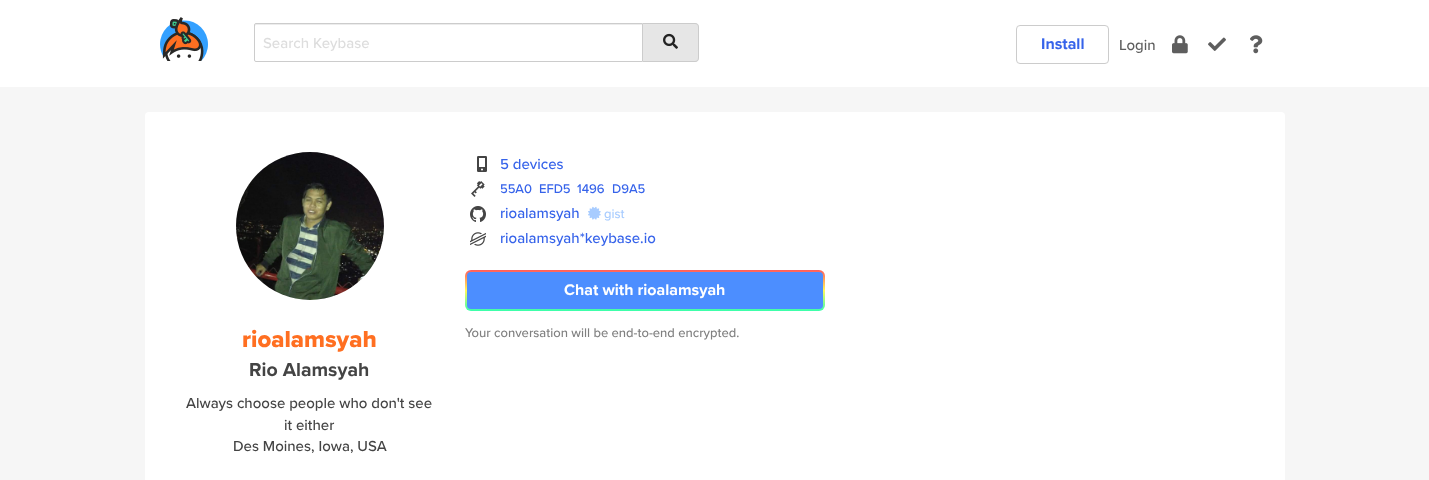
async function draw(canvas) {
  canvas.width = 1429;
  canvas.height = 480;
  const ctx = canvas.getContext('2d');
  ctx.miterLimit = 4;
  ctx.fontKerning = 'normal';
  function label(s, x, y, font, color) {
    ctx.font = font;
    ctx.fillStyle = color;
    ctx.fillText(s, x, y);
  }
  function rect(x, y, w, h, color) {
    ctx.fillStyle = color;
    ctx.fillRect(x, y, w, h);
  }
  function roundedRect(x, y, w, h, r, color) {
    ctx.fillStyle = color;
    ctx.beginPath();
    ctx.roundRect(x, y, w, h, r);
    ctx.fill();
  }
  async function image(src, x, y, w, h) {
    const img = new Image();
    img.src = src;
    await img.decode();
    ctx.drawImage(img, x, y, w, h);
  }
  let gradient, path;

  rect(0, 0, 1429, 480, '#f6f6f6');
  rect(0, 0, 1429, 87, '#fff');
  await image('assets/img1.png', 160, 17, 48, 44);
  ctx.fillStyle = '#ececec';
  path = new Path2D('M256 25H642V24H256C255 24 255 25 255 26Z');
  ctx.fill(path);
  ctx.beginPath();
  ctx.roundRect(254.5, 23.5, 388, 38, [1.5, 0, 0, 1.5]);
  ctx.strokeStyle = '#ccc';
  ctx.stroke();
  label('Search Keybase', 263, 48, '500 15px Proxima Nova', '#ddd');
  ctx.fillStyle = '#e6e6e6';
  ctx.beginPath();
  ctx.roundRect(643, 23, 56, 39, [0, 4, 4, 0]);
  ctx.fill();
  ctx.fillStyle = '#ccc';
  path = new Path2D('M643 23H695C697 23 699 25 699 27V58C699 60 697 62 695 62H643ZM643 24H695C697 24 698 25 698 27V58C698 60 697 61 695 61H643Z');
  ctx.fill(path, 'evenodd');
  await image('assets/img2.png', 663, 33, 15, 16);
  ctx.beginPath();
  ctx.roundRect(1016.5, 25.5, 92, 38, 3.5);
  ctx.stroke();
  label('Install', 1041, 49, 'bold 16px Proxima Nova', '#3663ea');
  label('Login', 1119, 50, '500 15px Proxima Nova', '#5e5e5e');
  await image('assets/img3.png', 1172, 35, 16, 19);
  await image('assets/img4.png', 1208, 37, 18, 14);
  await image('assets/img5.png', 1250, 35, 13, 19);
  roundedRect(145, 112, 1140, 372, 4, '#fff');
  await image('assets/img6.png', 477, 156, 10, 16);
  label('5 devices', 500, 169, '500 15px Proxima Nova', '#3663ea');
  await image('assets/img7.png', 471, 181, 14, 16);
  label('55A0', 500, 193, '500 13px Proxima Nova', '#3663ea');
  label('EFD5', 539, 193, '500 13px Proxima Nova', '#3663ea');
  label('1496', 577, 193, '500 13px Proxima Nova', '#3663ea');
  label('D9A5', 612, 193, '500 13px Proxima Nova', '#3663ea');
  await image('assets/img8.png', 470, 206, 16, 16);
  label('rioalamsyah', 500, 218, '500 15px Proxima Nova', '#3663ea');
  await image('assets/img9.png', 588, 206, 13, 14);
  label('gist', 604, 218, '500 13px Proxima Nova', '#a8ccff');
  await image('assets/img10.png', 470, 232, 16, 14);
  label('rioalamsyah*keybase.io', 500, 243, '500 15px Proxima Nova', '#3663ea');
  gradient = ctx.createLinearGradient(645, 270, 645, 311);
  gradient.addColorStop(0, '#ff5d5d');
  gradient.addColorStop(0.5, '#fff75a');
  gradient.addColorStop(1, '#3affac');
  ctx.fillStyle = gradient;
  ctx.beginPath();
  ctx.roundRect(465, 270, 360, 41, 6);
  ctx.fill();
  roundedRect(467, 272, 356, 37, 4, '#4c8eff');
  label('Chat with rioalamsyah', 564, 295, 'bold 16px Proxima Nova', '#fff');
  label('Your conversation will be end-to-end encrypted.', 465, 337, '500 13px Proxima Nova', '#808080');
  await image('assets/img11.png', 236, 152, 148, 148);
  label('rioalamsyah', 242, 347, '800 24px Proxima Nova', '#ff6f21');
  label('Rio Alamsyah', 249, 376, 'bold 19.5px Proxima Nova', '#444');
  label('Always choose people who don\'t see', 186, 408, '500 15px Proxima Nova', '#444');
  label('it either', 284, 430, '500 15px Proxima Nova', '#444');
  label('Des Moines, Iowa, USA', 233, 451, '500 15px Proxima Nova', '#444');
}

draw(document.querySelector('canvas'));
